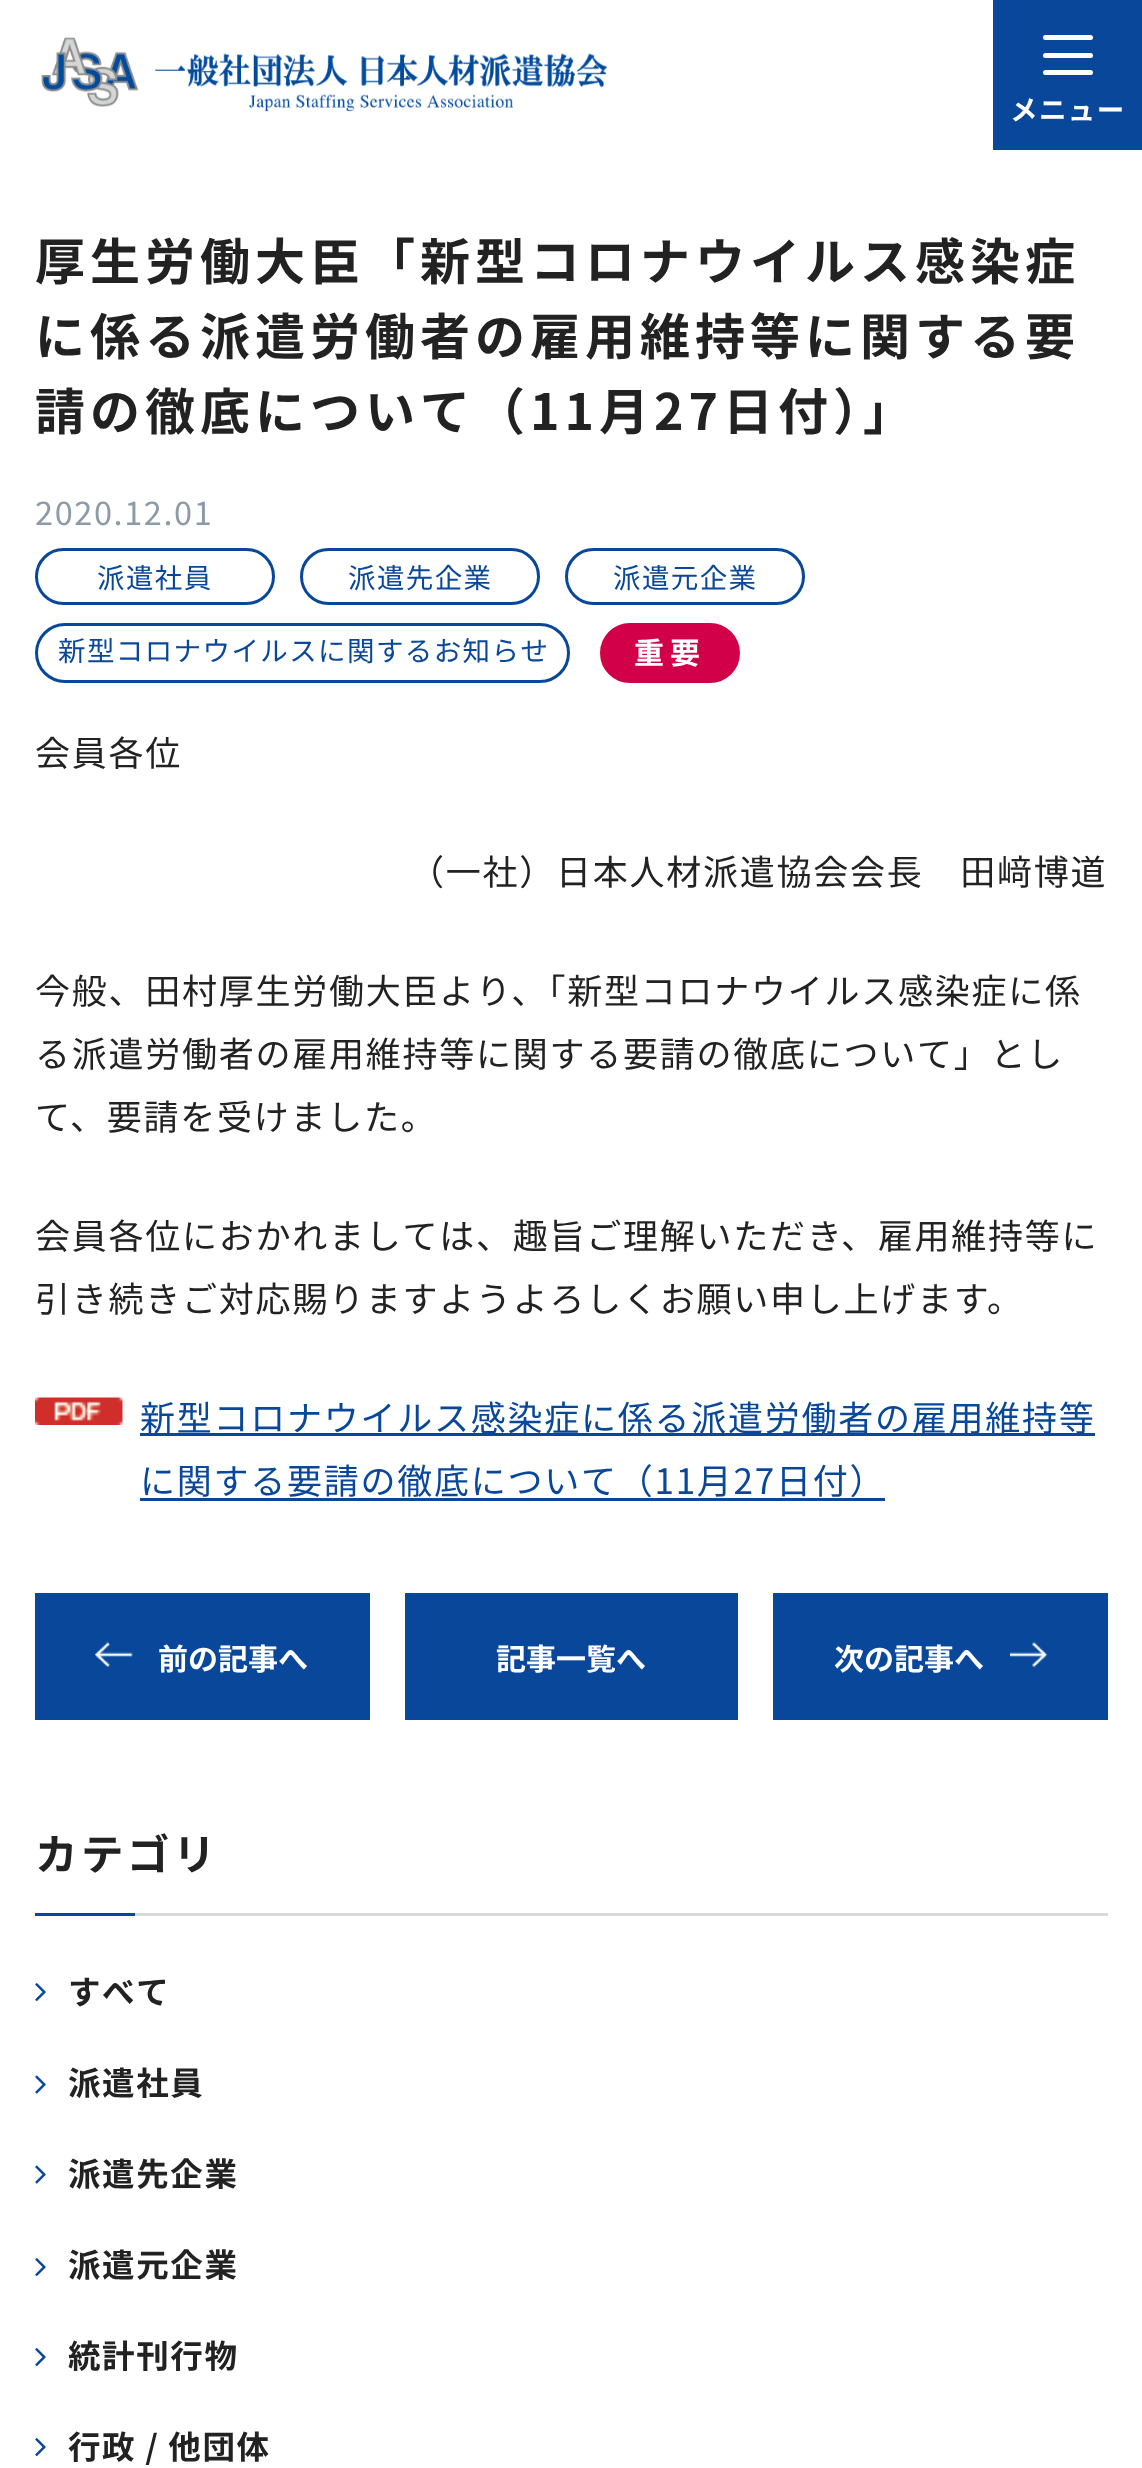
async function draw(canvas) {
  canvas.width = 1142;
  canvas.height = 2468;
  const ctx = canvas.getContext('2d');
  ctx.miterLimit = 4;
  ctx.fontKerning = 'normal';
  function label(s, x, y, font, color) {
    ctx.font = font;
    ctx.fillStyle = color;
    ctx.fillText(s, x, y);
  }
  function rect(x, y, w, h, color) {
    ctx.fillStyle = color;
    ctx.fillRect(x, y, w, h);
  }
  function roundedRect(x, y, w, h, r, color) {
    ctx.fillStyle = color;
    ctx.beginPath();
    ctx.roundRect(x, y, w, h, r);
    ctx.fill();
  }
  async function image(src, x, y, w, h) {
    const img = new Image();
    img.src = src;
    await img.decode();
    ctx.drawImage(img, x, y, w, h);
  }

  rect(0, 0, 1142, 2468, '#fff');
  await image('assets/img1.png', 41, 37, 567, 75);
  rect(993, 0, 149, 150, '#09479b');
  roundedRect(1043, 35, 50, 5, 2.5, '#fff');
  roundedRect(1043, 53, 50, 5, 2.5, '#fff');
  roundedRect(1043, 70, 50, 5, 2.5, '#fff');
  ctx.letterSpacing = '1.4px';
  label('メニュー', 1010, 120, 'bold 27.5px Noto Sans JP', '#fff');
  ctx.letterSpacing = '5px';
  label('厚生労働大臣「新型コロナウイルス感染症', 35, 280, 'bold 50px Noto Sans JP', '#222');
  label('に係る派遣労働者の雇用維持等に関する要', 35, 355, 'bold 50px Noto Sans JP', '#222');
  label('請の徹底について（11月27日付）」', 35, 430, 'bold 50px Noto Sans JP', '#222');
  ctx.letterSpacing = '1.6px';
  label('2020.12.01', 35, 525, '32.5px Noto Sans JP', '#8d9aa8');
  ctx.beginPath();
  ctx.roundRect(36.5, 549.5, 237, 54, 27);
  ctx.strokeStyle = '#09479b';
  ctx.lineWidth = 3;
  ctx.stroke();
  ctx.letterSpacing = '1.4px';
  label('派遣社員', 97, 588, '27.5px Noto Sans JP', '#09479b');
  ctx.beginPath();
  ctx.roundRect(301.5, 549.5, 237, 54, 27);
  ctx.stroke();
  label('派遣先企業', 348, 588, '27.5px Noto Sans JP', '#09479b');
  ctx.beginPath();
  ctx.roundRect(566.5, 549.5, 237, 54, 27);
  ctx.stroke();
  label('派遣元企業', 613, 588, '27.5px Noto Sans JP', '#09479b');
  ctx.beginPath();
  ctx.roundRect(36.5, 624.5, 532, 57, 28.5);
  ctx.stroke();
  label('新型コロナウイルスに関するお知らせ', 58, 661, '27.5px Noto Sans JP', '#09479b');
  ctx.fillStyle = '#d10048';
  ctx.beginPath();
  ctx.roundRect(601.5, 624.5, 137, 57, 28.5);
  ctx.fill();
  ctx.strokeStyle = '#d10048';
  ctx.stroke();
  ctx.letterSpacing = '6px';
  label('重要', 634, 664, 'bold 30px Noto Sans JP', '#fff');
  ctx.letterSpacing = '1.75px';
  label('会員各位', 35, 766, '35px Noto Sans JP', '#222');
  label('（一社）日本人材派遣協会会長　田﨑博道', 409, 885, '35px Noto Sans JP', '#222');
  label('今般、田村厚生労働大臣より、「新型コロナウイルス感染症に係', 35, 1004, '35px Noto Sans JP', '#222');
  label('る派遣労働者の雇用維持等に関する要請の徹底について」とし', 35, 1067, '35px Noto Sans JP', '#222');
  label('て、要請を受けました。', 35, 1130, '35px Noto Sans JP', '#222');
  label('会員各位におかれましては、趣旨ご理解いただき、雇用維持等に', 35, 1249, '35px Noto Sans JP', '#222');
  label('引き続きご対応賜りますようよろしくお願い申し上げます。', 35, 1312, '35px Noto Sans JP', '#222');
  await image('assets/img2.png', 35, 1397, 88, 28);
  rect(140, 1433, 955, 3, '#09479b');
  label('新型コロナウイルス感染症に係る派遣労働者の雇用維持等', 140, 1431, '35px Noto Sans JP', '#09479b');
  label('に関する要請の徹底について（11月27日付）', 140, 1494, '35px Noto Sans JP', '#09479b');
  rect(140, 1498, 745, 3, '#09479b');
  rect(35, 1593, 335, 127, '#09479b');
  await image('assets/img3.png', 95, 1642, 38, 26);
  ctx.letterSpacing = '0px';
  label('前の記事へ', 158, 1670, 'bold 30px Noto Sans JP', '#fff');
  rect(405, 1593, 333, 127, '#09479b');
  label('記事一覧へ', 496, 1670, 'bold 30px Noto Sans JP', '#fff');
  rect(773, 1593, 335, 127, '#09479b');
  label('次の記事へ', 834, 1670, 'bold 30px Noto Sans JP', '#fff');
  await image('assets/img4.png', 1010, 1642, 38, 26);
  rect(135, 1913, 973, 3, '#d9d9d9');
  ctx.letterSpacing = '3.5px';
  label('カテゴリ', 35, 1870, 'bold 42.5px Noto Sans JP', '#222');
  rect(35, 1913, 100, 3, '#09479b');
  await image('assets/img5.png', 35, 1983, 11, 19);
  ctx.letterSpacing = '1.6px';
  label('すべて', 68, 2004, 'bold 32.5px Noto Sans JP', '#222');
  await image('assets/img6.png', 35, 2075, 11, 19);
  label('派遣社員', 68, 2095, 'bold 32.5px Noto Sans JP', '#222');
  await image('assets/img6.png', 35, 2165, 11, 19);
  label('派遣先企業', 68, 2186, 'bold 32.5px Noto Sans JP', '#222');
  await image('assets/img5.png', 35, 2258, 11, 19);
  label('派遣元企業', 68, 2277, 'bold 32.5px Noto Sans JP', '#222');
  await image('assets/img5.png', 35, 2348, 11, 19);
  label('統計刊行物', 68, 2368, 'bold 32.5px Noto Sans JP', '#222');
  await image('assets/img5.png', 35, 2438, 11, 19);
  label('行政 / 他団体', 68, 2459, 'bold 32.5px Noto Sans JP', '#222');
}

draw(document.querySelector('canvas'));
